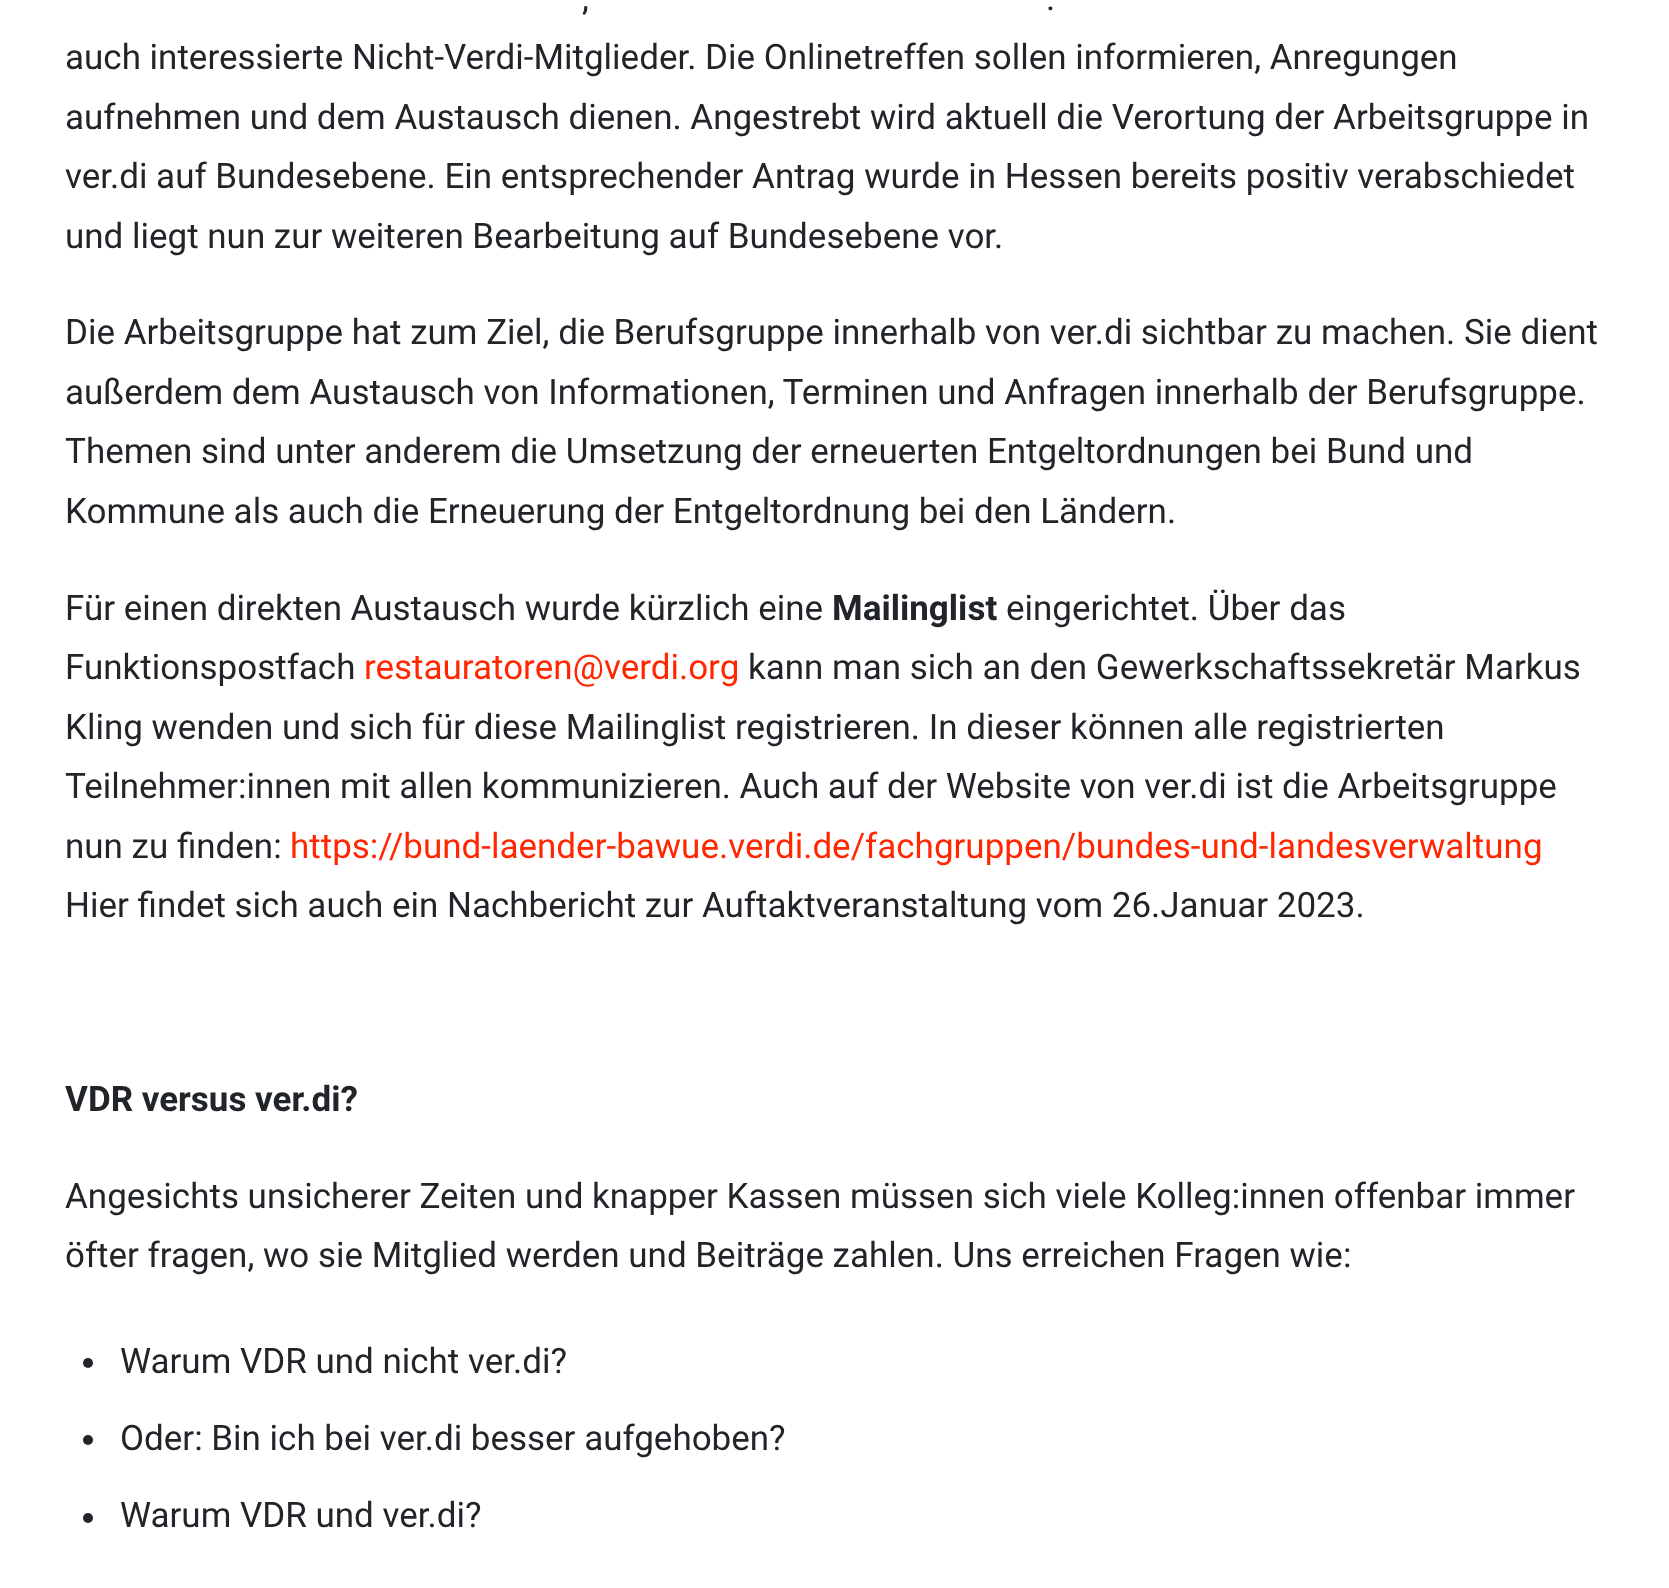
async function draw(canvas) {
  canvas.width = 1669;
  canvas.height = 1588;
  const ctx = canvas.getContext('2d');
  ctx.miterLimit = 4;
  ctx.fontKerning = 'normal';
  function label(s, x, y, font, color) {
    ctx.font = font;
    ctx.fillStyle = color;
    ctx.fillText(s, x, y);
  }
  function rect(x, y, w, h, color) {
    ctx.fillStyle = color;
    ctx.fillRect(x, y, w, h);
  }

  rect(0, 0, 1669, 1588, '#fff');
  label(',', 582, 10, '35px Roboto', '#212529');
  label('.', 1046, 10, '35px Roboto', '#212529');
  label('auch interessierte Nicht-Verdi-Mitglieder. Die Onlinetreffen sollen informieren, Anregungen', 65, 69, '35px Roboto', '#212529');
  label('aufnehmen und dem Austausch dienen. Angestrebt wird aktuell die Verortung der Arbeitsgruppe in', 65, 129, '35px Roboto', '#212529');
  label('ver.di auf Bundesebene. Ein entsprechender Antrag wurde in Hessen bereits positiv verabschiedet', 65, 188, '35px Roboto', '#212529');
  label('und liegt nun zur weiteren Bearbeitung auf Bundesebene vor.', 65, 248, '35px Roboto', '#212529');
  label('Die Arbeitsgruppe hat zum Ziel, die Berufsgruppe innerhalb von ver.di sichtbar zu machen. Sie dient', 65, 344, '35px Roboto', '#212529');
  label('außerdem dem Austausch von Informationen, Terminen und Anfragen innerhalb der Berufsgruppe.', 65, 404, '35px Roboto', '#212529');
  label('Themen sind unter anderem die Umsetzung der erneuerten Entgeltordnungen bei Bund und', 65, 463, '35px Roboto', '#212529');
  label('Kommune als auch die Erneuerung der Entgeltordnung bei den Ländern.', 65, 523, '35px Roboto', '#212529');
  label('Für einen direkten Austausch wurde kürzlich eine', 65, 620, '35px Roboto', '#212529');
  label('Mailinglist', 832, 620, 'bold 35px Roboto', '#212529');
  label('eingerichtet. Über das', 1006, 620, '35px Roboto', '#212529');
  label('Funktionspostfach', 65, 679, '35px Roboto', '#212529');
  label('restauratoren@verdi.org', 364, 679, '35px Roboto', '#ff2600');
  label('kann man sich an den Gewerkschaftssekretär Markus', 748, 679, '35px Roboto', '#212529');
  label('Kling wenden und sich für diese Mailinglist registrieren. In dieser können alle registrierten', 65, 739, '35px Roboto', '#212529');
  label('Teilnehmer:innen mit allen kommunizieren. Auch auf der Website von ver.di ist die Arbeitsgruppe', 65, 798, '35px Roboto', '#212529');
  label('nun zu finden:', 65, 858, '35px Roboto', '#212529');
  label('https://bund-laender-bawue.verdi.de/fachgruppen/bundes-und-landesverwaltung', 290, 858, '35px Roboto', '#ff2600');
  label('Hier findet sich auch ein Nachbericht zur Auftaktveranstaltung vom 26.Januar 2023.', 65, 917, '35px Roboto', '#212529');
  label('VDR versus ver.di?', 65, 1111, 'bold 35px Roboto', '#212529');
  label('Angesichts unsicherer Zeiten und knapper Kassen müssen sich viele Kolleg:innen offenbar immer', 65, 1208, '35px Roboto', '#212529');
  label('öfter fragen, wo sie Mitglied werden und Beiträge zahlen. Uns erreichen Fragen wie:', 65, 1267, '35px Roboto', '#212529');
  ctx.beginPath();
  ctx.arc(88, 1363, 5, 0, 2 * Math.PI);
  ctx.fill();
  label('Warum VDR und nicht ver.di?', 120, 1373, '35px Roboto', '#212529');
  ctx.beginPath();
  ctx.arc(88, 1440, 5, 0, 2 * Math.PI);
  ctx.fill();
  label('Oder: Bin ich bei ver.di besser aufgehoben?', 120, 1450, '35px Roboto', '#212529');
  ctx.beginPath();
  ctx.arc(88, 1518, 5, 0, 2 * Math.PI);
  ctx.fill();
  label('Warum VDR und ver.di?', 120, 1527, '35px Roboto', '#212529');
}

draw(document.querySelector('canvas'));
